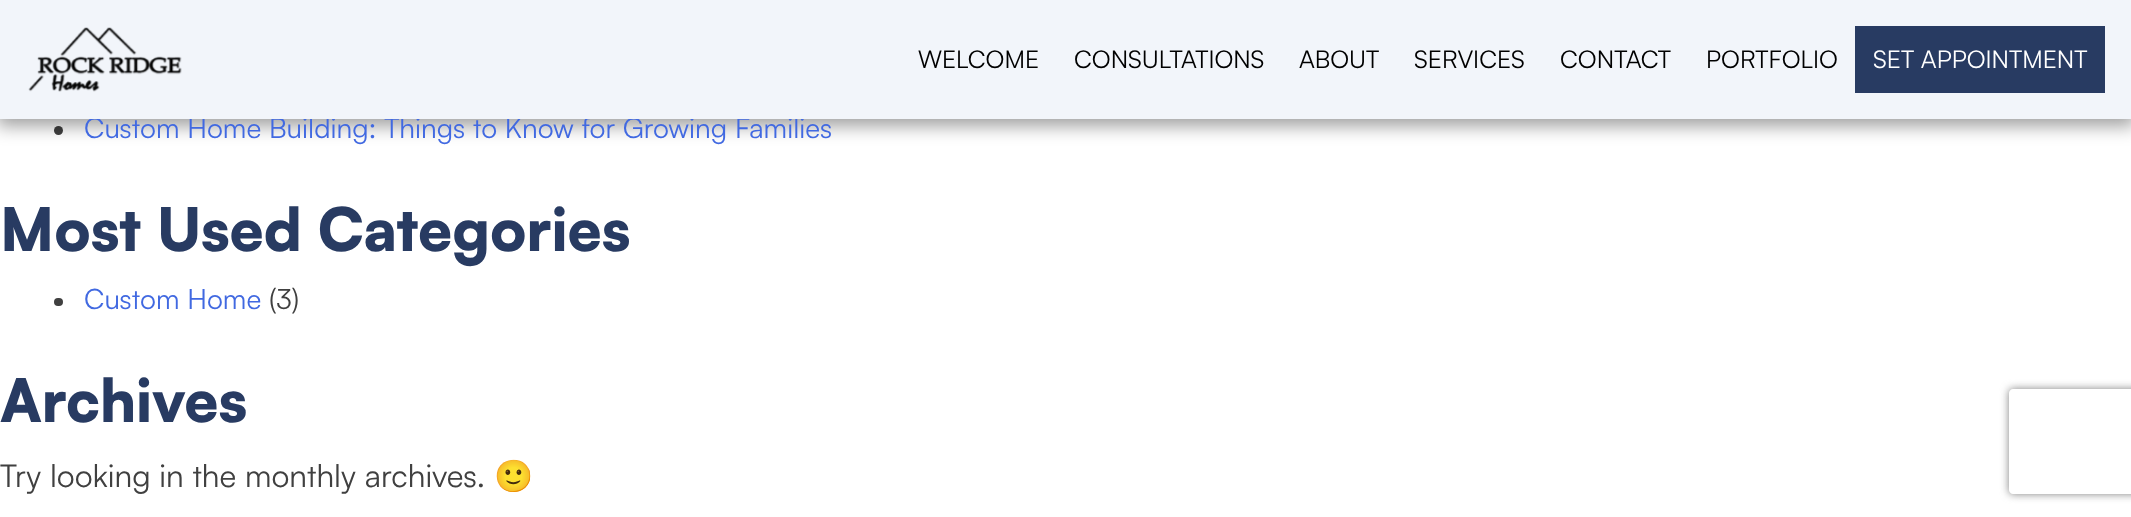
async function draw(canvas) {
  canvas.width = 2131;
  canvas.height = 517;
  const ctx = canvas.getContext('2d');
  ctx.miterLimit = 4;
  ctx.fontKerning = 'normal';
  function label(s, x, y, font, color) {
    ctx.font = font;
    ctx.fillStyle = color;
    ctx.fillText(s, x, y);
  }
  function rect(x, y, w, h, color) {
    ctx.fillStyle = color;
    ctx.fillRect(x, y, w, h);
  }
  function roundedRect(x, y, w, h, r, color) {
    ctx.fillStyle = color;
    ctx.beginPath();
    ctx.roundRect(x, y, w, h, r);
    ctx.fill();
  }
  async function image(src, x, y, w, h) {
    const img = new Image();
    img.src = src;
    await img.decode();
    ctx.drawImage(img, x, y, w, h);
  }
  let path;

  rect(0, 0, 2131, 517, '#fff');
  ctx.fillStyle = '#404040';
  ctx.beginPath();
  ctx.arc(58.5, 130.5, 4.5, 0, 2 * Math.PI);
  ctx.fill();
  ctx.fillStyle = '#00000061';
  ctx.filter = 'blur(9px)';
  ctx.beginPath();
  ctx.rect(-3, 0, 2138, 126);
  ctx.fill();
  ctx.filter = 'none';
  label('Custom Home Building: Things to Know for Growing Families', 84, 138, '28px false', '#4169e1');
  rect(0, 0, 2131, 119, '#f2f5fa');
  await image('assets/img1.png', 28, 27, 154, 65);
  label('WELCOME', 918, 68, '24.5px false', '#000');
  label('CONSULTATIONS', 1074, 68, '24.5px false', '#000');
  label('ABOUT', 1299, 68, '24.5px false', '#000');
  label('SERVICES', 1414, 68, '24.5px false', '#000');
  label('CONTACT', 1560, 68, '24.5px false', '#000');
  label('PORTFOLIO', 1706, 68, '24.5px false', '#000');
  rect(1855, 26, 250, 67, '#283b62');
  label('SET APPOINTMENT', 1873, 68, '24.5px false', '#fff');
  label('Most Used Categories', 0, 251, '900 59.5px Satoshi', '#283b62');
  roundedRect(54, 298, 9, 8, 4, '#404040');
  label('Custom Home', 84, 309, '28px false', '#4169e1');
  label('(3)', 269, 309, '28px false', '#404040');
  label('Archives', 0, 422, '900 59.5px Satoshi', '#283b62');
  label('Try looking in the monthly archives.', 0, 487, '31.5px false', '#404040');
  label('🙂', 494, 487, '31.5px Noto Color Emoji', '#404040');
  ctx.save();
  path = new Path2D('M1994 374H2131V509H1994ZM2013 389H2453C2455 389 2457 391 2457 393V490C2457 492 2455 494 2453 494H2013C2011 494 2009 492 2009 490V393C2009 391 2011 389 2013 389Z');
  ctx.clip(path, 'evenodd');
  ctx.fillStyle = '#808080';
  ctx.filter = 'blur(4.5px)';
  ctx.beginPath();
  ctx.roundRect(2009, 389, 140, 105, 4);
  ctx.fill();
  ctx.filter = 'none';
  ctx.restore();
}

draw(document.querySelector('canvas'));
